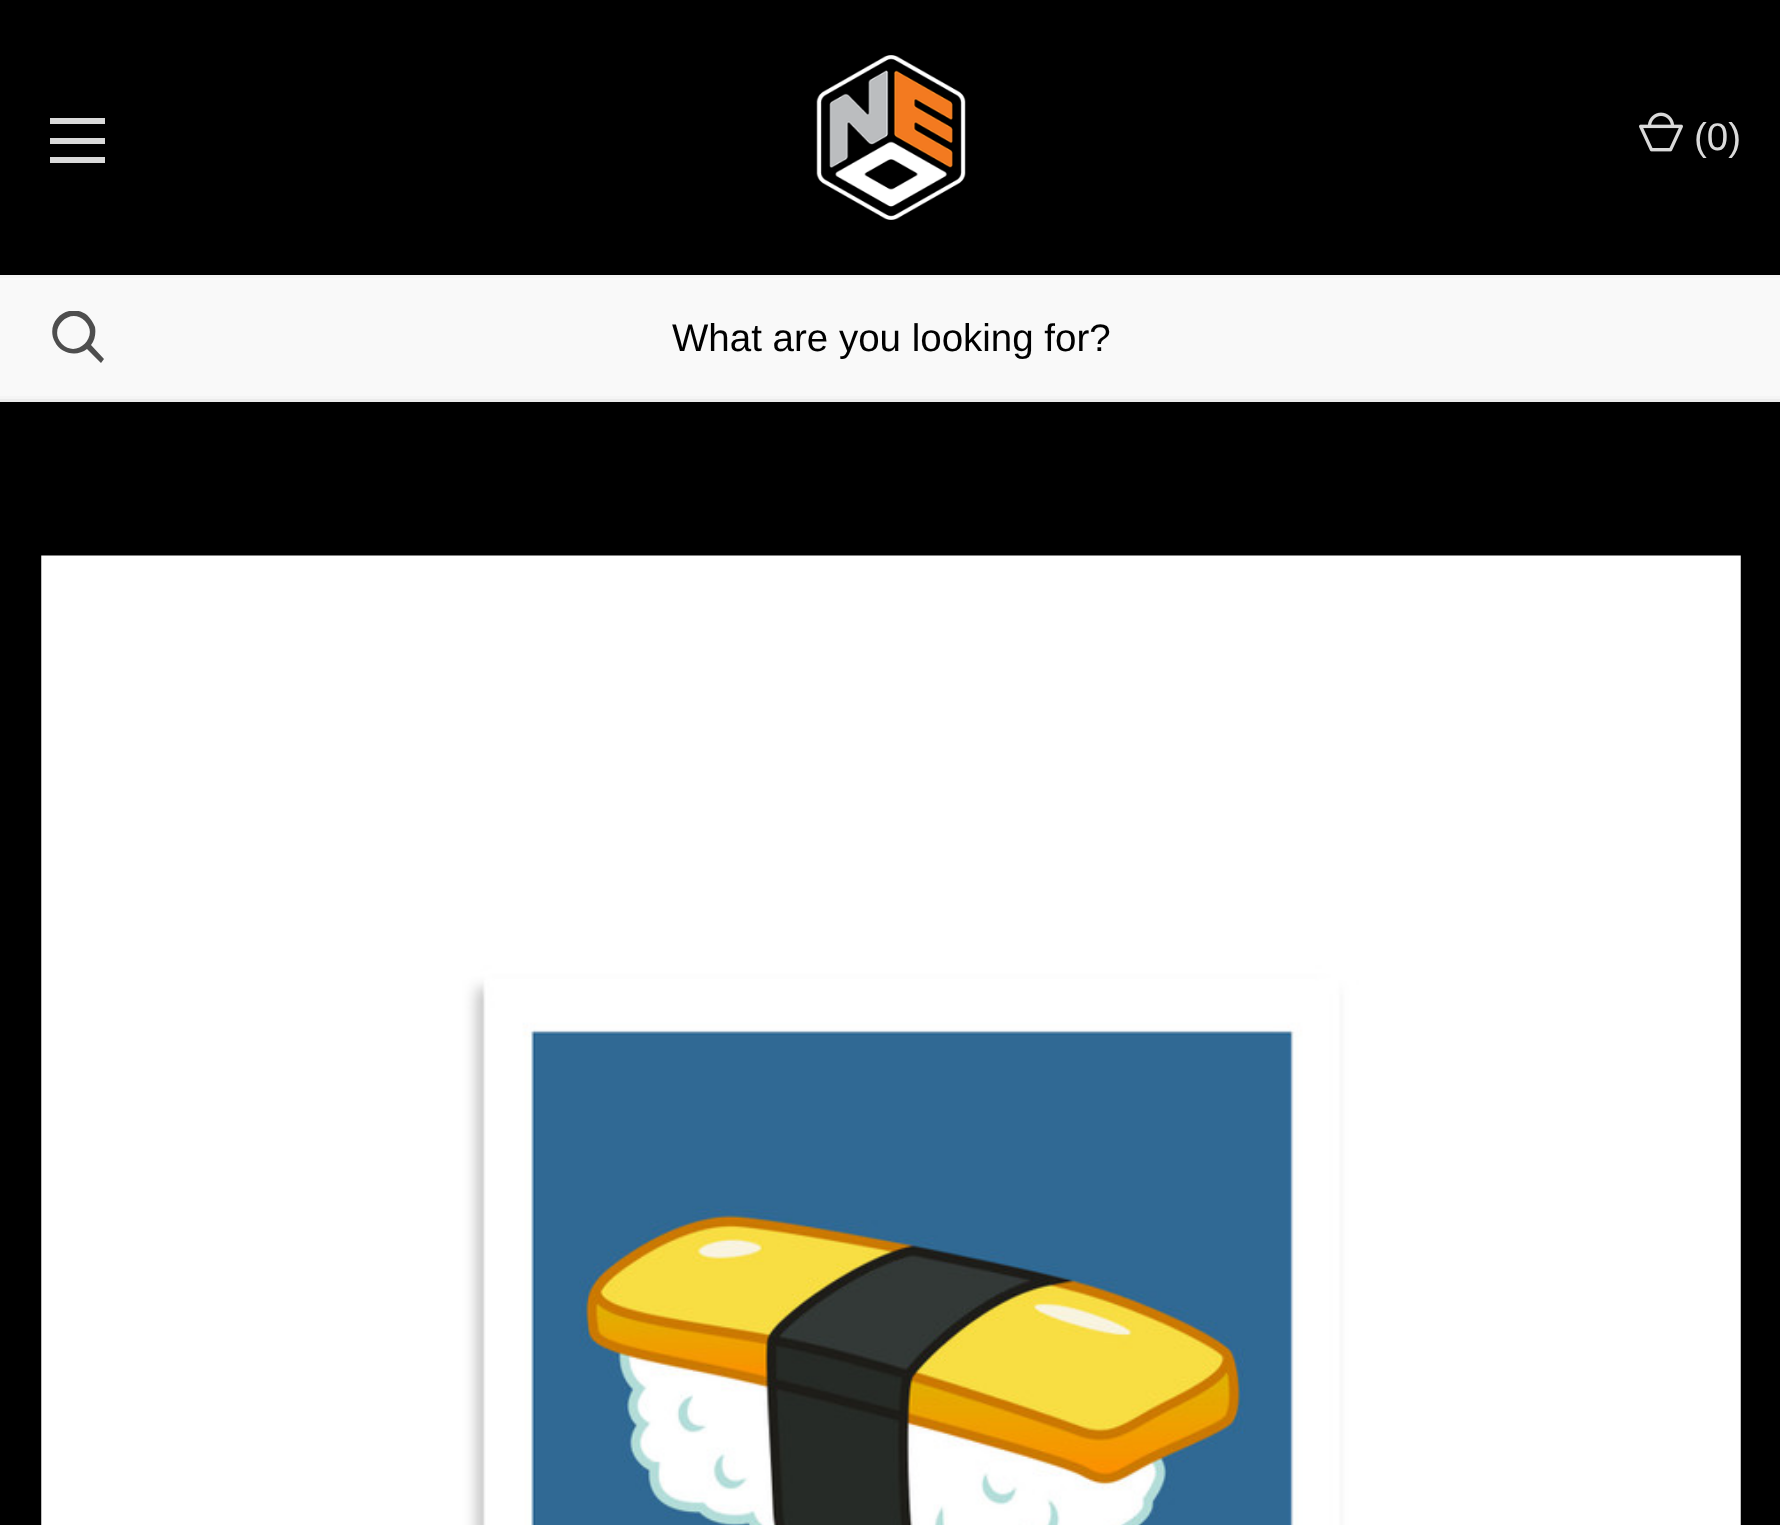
async function draw(canvas) {
  canvas.width = 1780;
  canvas.height = 1525;
  const ctx = canvas.getContext('2d');
  ctx.miterLimit = 4;
  ctx.fontKerning = 'normal';
  function label(s, x, y, font, color) {
    ctx.font = font;
    ctx.fillStyle = color;
    ctx.fillText(s, x, y);
  }
  function rect(x, y, w, h, color) {
    ctx.fillStyle = color;
    ctx.fillRect(x, y, w, h);
  }
  async function image(src, x, y, w, h) {
    const img = new Image();
    img.src = src;
    await img.decode();
    ctx.drawImage(img, x, y, w, h);
  }
  let path;

  rect(0, 0, 1780, 1525, '#000');
  rect(0, 399, 1780, 3, '#ebebeb');
  rect(50, 138, 55, 6, '#dadada');
  rect(50, 118, 55, 6, '#dadada');
  rect(50, 157, 55, 6, '#dadada');
  await image('assets/img1.png', 816, 55, 150, 165);
  await image('assets/img2.png', 1639, 112, 44, 40);
  label('(0)', 1694, 150, '38.5px Liberation Sans', '#dadada');
  rect(0, 278, 1780, 118, '#f9f9f9');
  ctx.save();
  ctx.beginPath();
  ctx.rect(52, 311, 53, 52);
  ctx.clip();
  ctx.fillStyle = '#4e4e4e';
  path = new Path2D('M104 359L101 363L87 349C77 357 61 354 55 342C44 322 68 301 87 315C90 318 93 322 95 327C96 333 95 340 91 345ZM62 344C77 359 100 336 85 321C70 306 47 329 62 344Z');
  ctx.fill(path, 'evenodd');
  ctx.restore();
  rect(0, 275, 1780, 3, '#f5f5f5');
  rect(0, 396, 1780, 3, '#f5f5f5');
  label('What are you looking for?', 672, 351, '38.5px Liberation Sans', '#000');
  await image('assets/img3.png', 41, 555, 1700, 970);
}

draw(document.querySelector('canvas'));
